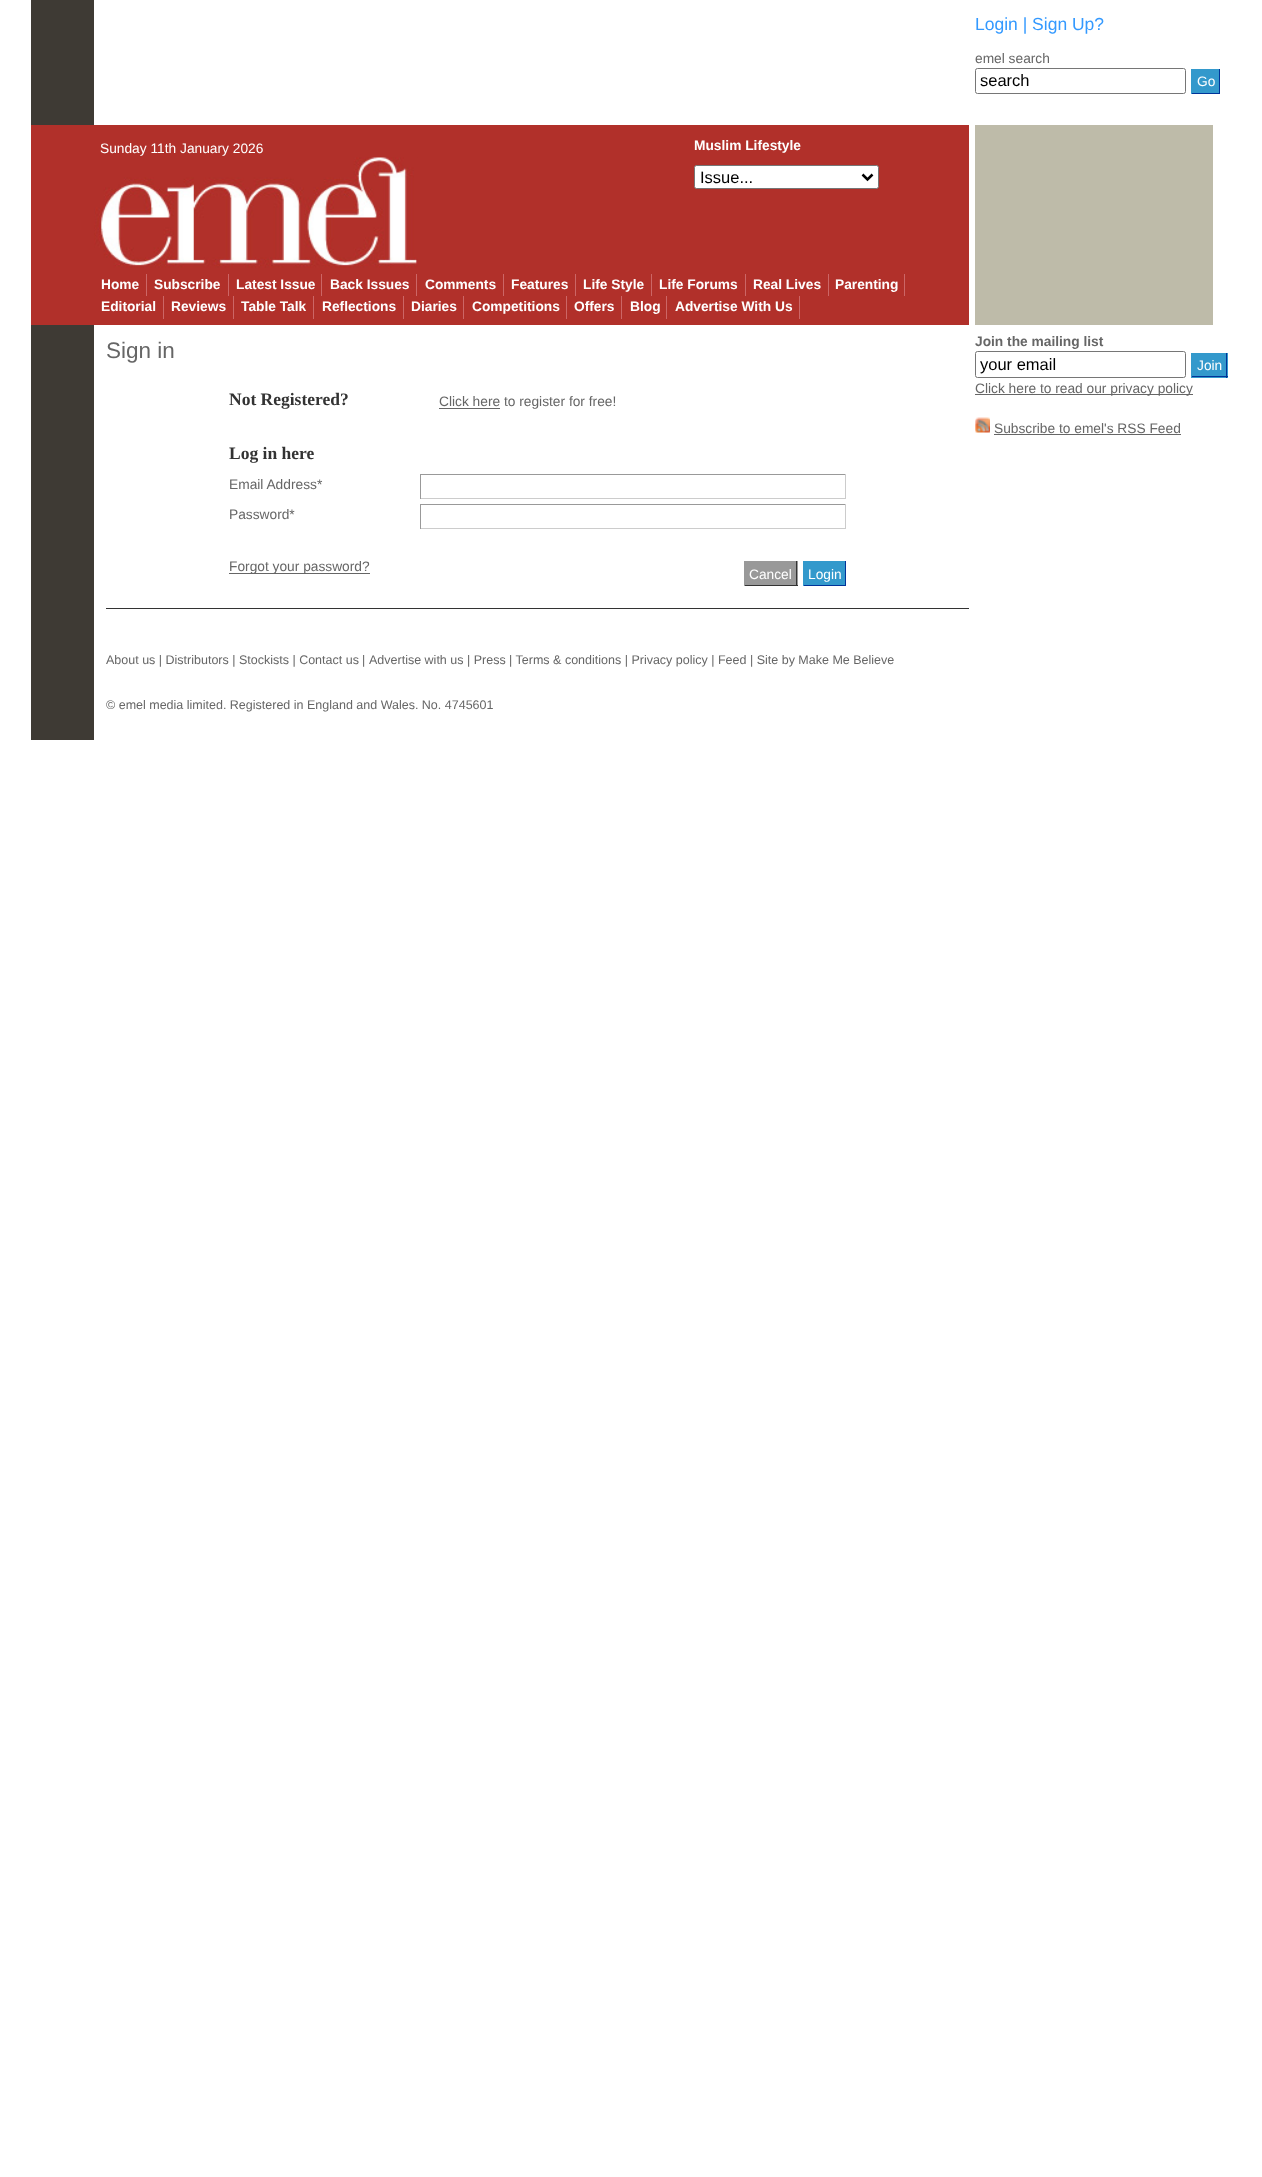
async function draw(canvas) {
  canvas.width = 1262;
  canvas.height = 2177;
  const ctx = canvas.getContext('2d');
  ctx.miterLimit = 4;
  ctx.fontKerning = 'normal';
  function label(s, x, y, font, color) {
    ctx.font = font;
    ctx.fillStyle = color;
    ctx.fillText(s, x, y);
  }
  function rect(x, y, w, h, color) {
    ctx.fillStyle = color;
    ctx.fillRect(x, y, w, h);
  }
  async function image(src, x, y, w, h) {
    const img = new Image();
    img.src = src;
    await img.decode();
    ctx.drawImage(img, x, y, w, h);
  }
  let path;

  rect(0, 0, 1262, 2177, '#fff');
  rect(31, 0, 63, 740, '#3e3a34');
  label('Login | Sign Up?', 975, 30, '17.5px Liberation Sans', '#39f');
  label('emel search', 975, 63, '13.75px Liberation Sans', '#666');
  ctx.beginPath();
  ctx.roundRect(975.5, 68.5, 210, 25, 2);
  ctx.strokeStyle = '#767676';
  ctx.stroke();
  label('search', 980, 86, '16.5px Liberation Sans', '#000');
  rect(1192, 69, 27, 24, '#39c');
  rect(1219, 69, 1, 25, '#039');
  rect(1191, 93, 29, 1, '#039');
  rect(1191, 69, 1, 25, '#39c');
  label('Go', 1197, 86, '13.75px Liberation Sans', '#fff');
  rect(31, 125, 938, 200, '#b1302a');
  label('Sunday 11th January 2026', 100, 153, '13.75px Liberation Sans', '#fff');
  label('Muslim Lifestyle', 694, 150, 'bold 13.75px Liberation Sans', '#fff');
  ctx.beginPath();
  ctx.roundRect(694.5, 165.5, 184, 23, 2);
  ctx.fill();
  ctx.stroke();
  path = new Path2D('M862.5 174.5L867.5 179.5L872.5 174.5');
  ctx.strokeStyle = '#000';
  ctx.lineWidth = 2.5;
  ctx.stroke(path);
  label('Issue...', 700, 183, '16.5px Liberation Sans', '#000');
  await image('assets/img1.png', 94, 157, 324, 111);
  rect(146, 274, 1, 22, '#c66');
  label('Home', 101, 289, 'bold 13.75px Liberation Sans', '#fff');
  rect(228, 274, 1, 22, '#c66');
  label('Subscribe', 154, 289, 'bold 13.75px Liberation Sans', '#fff');
  rect(321, 274, 1, 22, '#c66');
  label('Latest Issue', 236, 289, 'bold 13.75px Liberation Sans', '#fff');
  rect(416, 274, 1, 22, '#c66');
  label('Back Issues', 330, 289, 'bold 13.75px Liberation Sans', '#fff');
  rect(503, 274, 1, 22, '#c66');
  label('Comments', 425, 289, 'bold 13.75px Liberation Sans', '#fff');
  rect(575, 274, 1, 22, '#c66');
  label('Features', 511, 289, 'bold 13.75px Liberation Sans', '#fff');
  rect(651, 274, 1, 22, '#c66');
  label('Life Style', 583, 289, 'bold 13.75px Liberation Sans', '#fff');
  rect(745, 274, 1, 22, '#c66');
  label('Life Forums', 659, 289, 'bold 13.75px Liberation Sans', '#fff');
  rect(828, 274, 1, 22, '#c66');
  label('Real Lives', 753, 289, 'bold 13.75px Liberation Sans', '#fff');
  rect(904, 274, 1, 22, '#c66');
  label('Parenting', 835, 289, 'bold 13.75px Liberation Sans', '#fff');
  rect(163, 296, 1, 23, '#c66');
  label('Editorial', 101, 311, 'bold 13.75px Liberation Sans', '#fff');
  rect(233, 296, 1, 23, '#c66');
  label('Reviews', 171, 311, 'bold 13.75px Liberation Sans', '#fff');
  rect(313, 296, 1, 23, '#c66');
  label('Table Talk', 241, 311, 'bold 13.75px Liberation Sans', '#fff');
  rect(403, 296, 1, 23, '#c66');
  label('Reflections', 322, 311, 'bold 13.75px Liberation Sans', '#fff');
  rect(463, 296, 1, 23, '#c66');
  label('Diaries', 411, 311, 'bold 13.75px Liberation Sans', '#fff');
  rect(566, 296, 1, 23, '#c66');
  label('Competitions', 472, 311, 'bold 13.75px Liberation Sans', '#fff');
  rect(621, 296, 1, 23, '#c66');
  label('Offers', 574, 311, 'bold 13.75px Liberation Sans', '#fff');
  rect(666, 296, 1, 23, '#c66');
  label('Blog', 630, 311, 'bold 13.75px Liberation Sans', '#fff');
  rect(799, 296, 1, 23, '#c66');
  label('Advertise With Us', 675, 311, 'bold 13.75px Liberation Sans', '#fff');
  rect(975, 125, 238, 200, '#bebba9');
  label('Sign in', 106, 358, '22.5px Liberation Sans', '#666');
  label('Not Registered?', 229, 405, 'bold 17.5px Liberation Serif', '#333');
  rect(439, 408, 61, 1, '#666');
  label('Click here to register for free!', 439, 406, '13.75px Liberation Sans', '#666');
  label('Log in here', 229, 459, 'bold 17.5px Liberation Serif', '#333');
  label('Email Address*', 229, 489, '13.75px Liberation Sans', '#666');
  rect(420, 474, 426, 1, '#999');
  rect(845, 474, 1, 25, '#ccc');
  rect(420, 498, 426, 1, '#ccc');
  rect(420, 474, 1, 25, '#999');
  label('Password*', 229, 519, '13.75px Liberation Sans', '#666');
  rect(420, 504, 426, 1, '#999');
  rect(845, 504, 1, 25, '#ccc');
  rect(420, 528, 426, 1, '#ccc');
  rect(420, 504, 1, 25, '#999');
  rect(229, 573, 141, 1, '#666');
  label('Forgot your password?', 229, 571, '13.75px Liberation Sans', '#666');
  rect(745, 561, 53, 24, '#999');
  rect(796, 561, 1, 25, '#333');
  rect(744, 585, 54, 1, '#333');
  rect(744, 561, 1, 25, '#999');
  label('Cancel', 749, 579, '13.75px Liberation Sans', '#fff');
  rect(804, 561, 41, 24, '#39c');
  rect(845, 561, 1, 25, '#039');
  rect(803, 585, 43, 1, '#039');
  rect(803, 561, 1, 25, '#39c');
  label('Login', 808, 579, '13.75px Liberation Sans', '#fff');
  label('Join the mailing list', 975, 346, 'bold 13.75px Liberation Sans', '#666');
  ctx.beginPath();
  ctx.roundRect(975.5, 351.5, 210, 26, 2);
  ctx.strokeStyle = '#767676';
  ctx.lineWidth = 1;
  ctx.stroke();
  label('your email', 980, 370, '16.5px Liberation Sans', '#000');
  rect(1192, 353, 36, 25, '#39c');
  rect(1226, 353, 1, 25, '#039');
  rect(1191, 376, 37, 1, '#039');
  rect(1191, 353, 1, 25, '#39c');
  label('Join', 1197, 370, '13.75px Liberation Sans', '#fff');
  rect(975, 394, 218, 1, '#666');
  label('Click here to read our privacy policy', 975, 393, '13.75px Liberation Sans', '#666');
  await image('assets/img2.png', 975, 417, 15, 16);
  label('Subscribe to emel\'s RSS Feed', 994, 433, '13.75px Liberation Sans', '#666');
  rect(994, 434, 187, 1, '#666');
  rect(106, 608, 863, 1, '#333');
  label('About us | Distributors | Stockists | Contact us', 106, 664, '12.5px Liberation Sans', '#666');
  label('|', 362, 664, '12.5px Liberation Sans', '#666');
  label('Advertise with us | Press | Terms & conditions | Privacy policy | Feed | Site by Make Me Believe', 369, 664, '12.5px Liberation Sans', '#666');
  label('© emel media limited. Registered in England and Wales. No. 4745601', 106, 709, '12.5px Liberation Sans', '#666');
}

draw(document.querySelector('canvas'));
